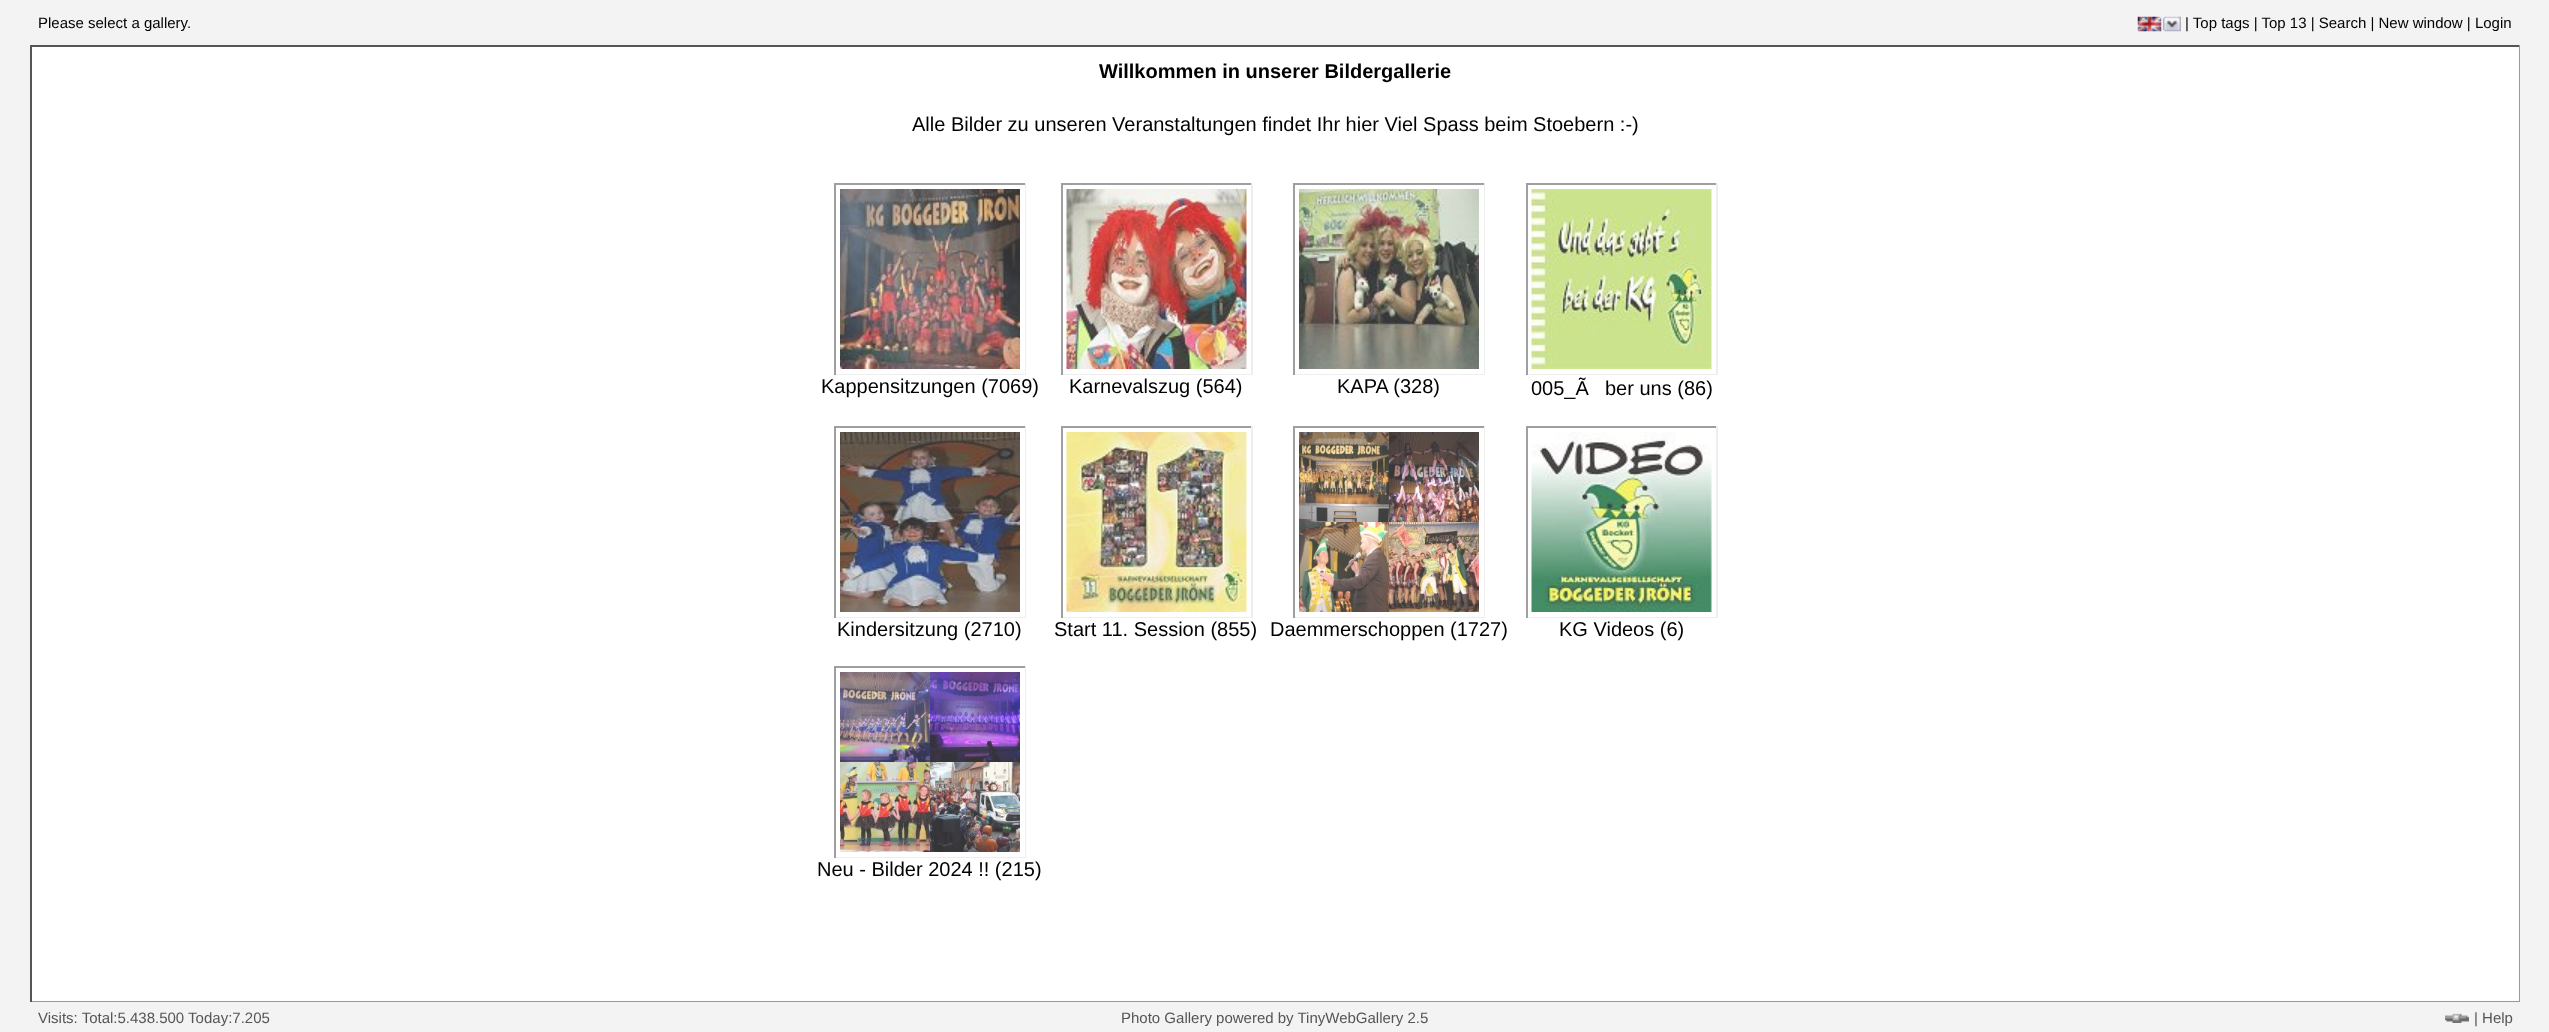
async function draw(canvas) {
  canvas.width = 2549;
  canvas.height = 1032;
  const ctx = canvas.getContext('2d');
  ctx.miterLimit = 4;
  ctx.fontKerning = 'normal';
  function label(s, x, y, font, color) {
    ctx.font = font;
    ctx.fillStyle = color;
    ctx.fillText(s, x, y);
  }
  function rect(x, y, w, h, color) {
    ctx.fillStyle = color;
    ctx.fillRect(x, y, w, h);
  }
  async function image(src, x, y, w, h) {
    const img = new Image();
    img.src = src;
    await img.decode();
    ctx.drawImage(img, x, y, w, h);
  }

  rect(0, 0, 2549, 1032, '#f3f3f3');
  label('Please select a gallery.', 38, 28, '15px Liberation Sans', '#000');
  await image('assets/img1.png', 2137, 16, 25, 16);
  await image('assets/img2.png', 2163, 16, 18, 16);
  label('| Top tags | Top 13 | Search | New window | Login', 2185, 28, '15px Liberation Sans', '#000');
  rect(30, 45, 2490, 2, '#555');
  rect(2519, 45, 1, 957, '#999');
  rect(30, 1001, 2490, 1, '#999');
  rect(30, 45, 2, 957, '#555');
  rect(32, 47, 2487, 954, '#fff');
  label('Willkommen in unserer Bildergallerie', 1099, 78, 'bold 20px Liberation Sans', '#000');
  label('Alle Bilder zu unseren Veranstaltungen findet Ihr hier Viel Spass beim Stoebern :-)', 912, 131, '20px Liberation Sans', '#000');
  rect(834, 183, 192, 2, '#9f9f9f');
  rect(1025, 183, 1, 192, '#eee');
  rect(834, 374, 192, 1, '#eee');
  rect(834, 183, 2, 192, '#9f9f9f');
  await image('assets/img3.png', 840, 189, 180, 180);
  label('Kappensitzungen (7069)', 821, 393, '20px Liberation Sans', '#000');
  rect(1061, 183, 192, 2, '#9f9f9f');
  rect(1251, 183, 2, 192, '#eee');
  rect(1061, 374, 192, 1, '#eee');
  rect(1061, 183, 2, 192, '#9f9f9f');
  await image('assets/img4.png', 1066, 189, 181, 180);
  label('Karnevalszug (564)', 1069, 393, '20px Liberation Sans', '#000');
  rect(1293, 183, 192, 2, '#9f9f9f');
  rect(1484, 183, 1, 192, '#eee');
  rect(1293, 374, 192, 1, '#eee');
  rect(1293, 183, 2, 192, '#9f9f9f');
  await image('assets/img5.png', 1299, 189, 180, 180);
  label('KAPA (328)', 1337, 393, '20px Liberation Sans', '#000');
  rect(1526, 183, 192, 2, '#9f9f9f');
  rect(1716, 183, 2, 192, '#eee');
  rect(1526, 374, 192, 1, '#eee');
  rect(1526, 183, 2, 192, '#9f9f9f');
  await image('assets/img6.png', 1531, 189, 181, 180);
  label('005_Ã', 1531, 395, '20px Liberation Sans', '#000');
  label('ber uns (86)', 1605, 395, '20px Liberation Sans', '#000');
  rect(834, 426, 192, 2, '#9f9f9f');
  rect(1025, 426, 1, 192, '#eee');
  rect(834, 617, 192, 1, '#eee');
  rect(834, 426, 2, 192, '#9f9f9f');
  await image('assets/img7.png', 840, 432, 180, 180);
  label('Kindersitzung (2710)', 837, 636, '20px Liberation Sans', '#000');
  rect(1061, 426, 192, 2, '#9f9f9f');
  rect(1251, 426, 2, 192, '#eee');
  rect(1061, 617, 192, 1, '#eee');
  rect(1061, 426, 2, 192, '#9f9f9f');
  await image('assets/img8.png', 1066, 432, 181, 180);
  label('Start 11. Session (855)', 1054, 636, '20px Liberation Sans', '#000');
  rect(1293, 426, 192, 2, '#9f9f9f');
  rect(1484, 426, 1, 192, '#eee');
  rect(1293, 617, 192, 1, '#eee');
  rect(1293, 426, 2, 192, '#9f9f9f');
  await image('assets/img9.png', 1299, 432, 90, 90);
  await image('assets/img10.png', 1389, 432, 90, 90);
  await image('assets/img11.png', 1299, 522, 90, 90);
  await image('assets/img12.png', 1389, 522, 90, 90);
  label('Daemmerschoppen (1727)', 1270, 636, '20px Liberation Sans', '#000');
  rect(1526, 426, 192, 2, '#9f9f9f');
  rect(1716, 426, 2, 192, '#eee');
  rect(1526, 617, 192, 1, '#eee');
  rect(1526, 426, 2, 192, '#9f9f9f');
  await image('assets/img13.png', 1531, 432, 181, 180);
  label('KG Videos (6)', 1559, 636, '20px Liberation Sans', '#000');
  rect(834, 666, 192, 2, '#9f9f9f');
  rect(1025, 666, 1, 192, '#eee');
  rect(834, 857, 192, 1, '#eee');
  rect(834, 666, 2, 192, '#9f9f9f');
  await image('assets/img14.png', 840, 672, 90, 90);
  await image('assets/img15.png', 930, 672, 90, 90);
  await image('assets/img16.png', 840, 762, 90, 90);
  await image('assets/img17.png', 930, 762, 90, 90);
  label('Neu - Bilder 2024 !! (215)', 817, 876, '20px Liberation Sans', '#000');
  label('Visits: Total:5.438.500 Today:7.205', 38, 1023, '15px Liberation Sans', '#555');
  label('Photo Gallery powered by TinyWebGallery 2.5', 1121, 1023, '15px Liberation Sans', '#555');
  await image('assets/img18.png', 2445, 1013, 24, 10);
  label('| Help', 2474, 1023, '15px Liberation Sans', '#555');
}

draw(document.querySelector('canvas'));
